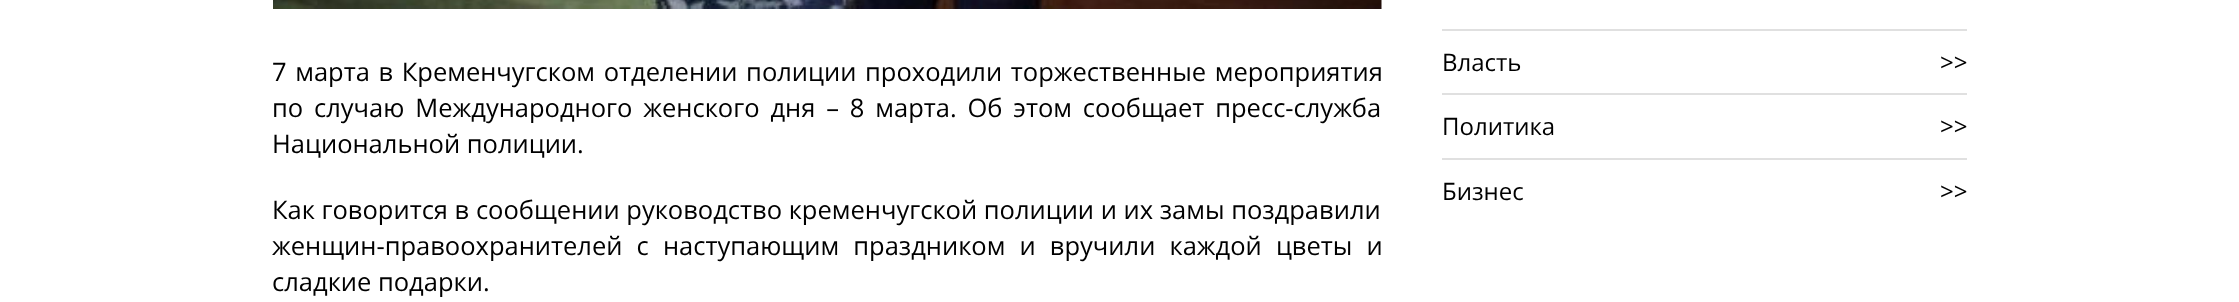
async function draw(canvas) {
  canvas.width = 2239;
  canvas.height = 302;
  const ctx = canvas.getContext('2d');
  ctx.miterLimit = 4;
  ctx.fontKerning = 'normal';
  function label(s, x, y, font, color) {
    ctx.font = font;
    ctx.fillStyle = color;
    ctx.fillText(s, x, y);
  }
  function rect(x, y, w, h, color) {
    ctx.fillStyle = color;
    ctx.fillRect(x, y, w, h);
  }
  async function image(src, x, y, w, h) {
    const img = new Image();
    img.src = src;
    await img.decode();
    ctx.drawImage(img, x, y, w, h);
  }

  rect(0, 0, 2239, 302, '#fff');
  await image('assets/img1.png', 273, 0, 1109, 9);
  ctx.wordSpacing = '2px';
  label('7 марта в Кременчугском отделении полиции проходили торжественные мероприятия', 272, 81, '25.5px Open Sans', '#000');
  ctx.wordSpacing = '4.25px';
  label('по случаю Международного женского дня – 8 марта. Об этом сообщает пресс-служба', 272, 117, '25.5px Open Sans', '#000');
  ctx.wordSpacing = '0px';
  label('Национальной полиции.', 272, 153, '25.5px Open Sans', '#000');
  label('Как говорится в сообщении руководство кременчугской полиции и их замы поздравили', 272, 219, '25.5px Open Sans', '#000');
  ctx.wordSpacing = '7.5px';
  label('женщин-правоохранителей с наступающим праздником и вручили каждой цветы и', 272, 255, '25.5px Open Sans', '#000');
  ctx.wordSpacing = '0px';
  label('сладкие подарки.', 272, 291, '25.5px Open Sans', '#000');
  rect(1442, 29, 525, 2, '#e0e0e0');
  rect(1442, 93, 525, 2, '#e0e0e0');
  label('Власть', 1442, 71, '24px Open Sans', '#000');
  label('>>', 1940, 71, '24px Open Sans', '#000');
  rect(1442, 158, 525, 2, '#e0e0e0');
  label('Политика', 1442, 135, '24px Open Sans', '#000');
  label('>>', 1940, 135, '24px Open Sans', '#000');
  label('Бизнес', 1442, 200, '24px Open Sans', '#000');
  label('>>', 1940, 200, '24px Open Sans', '#000');
}

draw(document.querySelector('canvas'));
